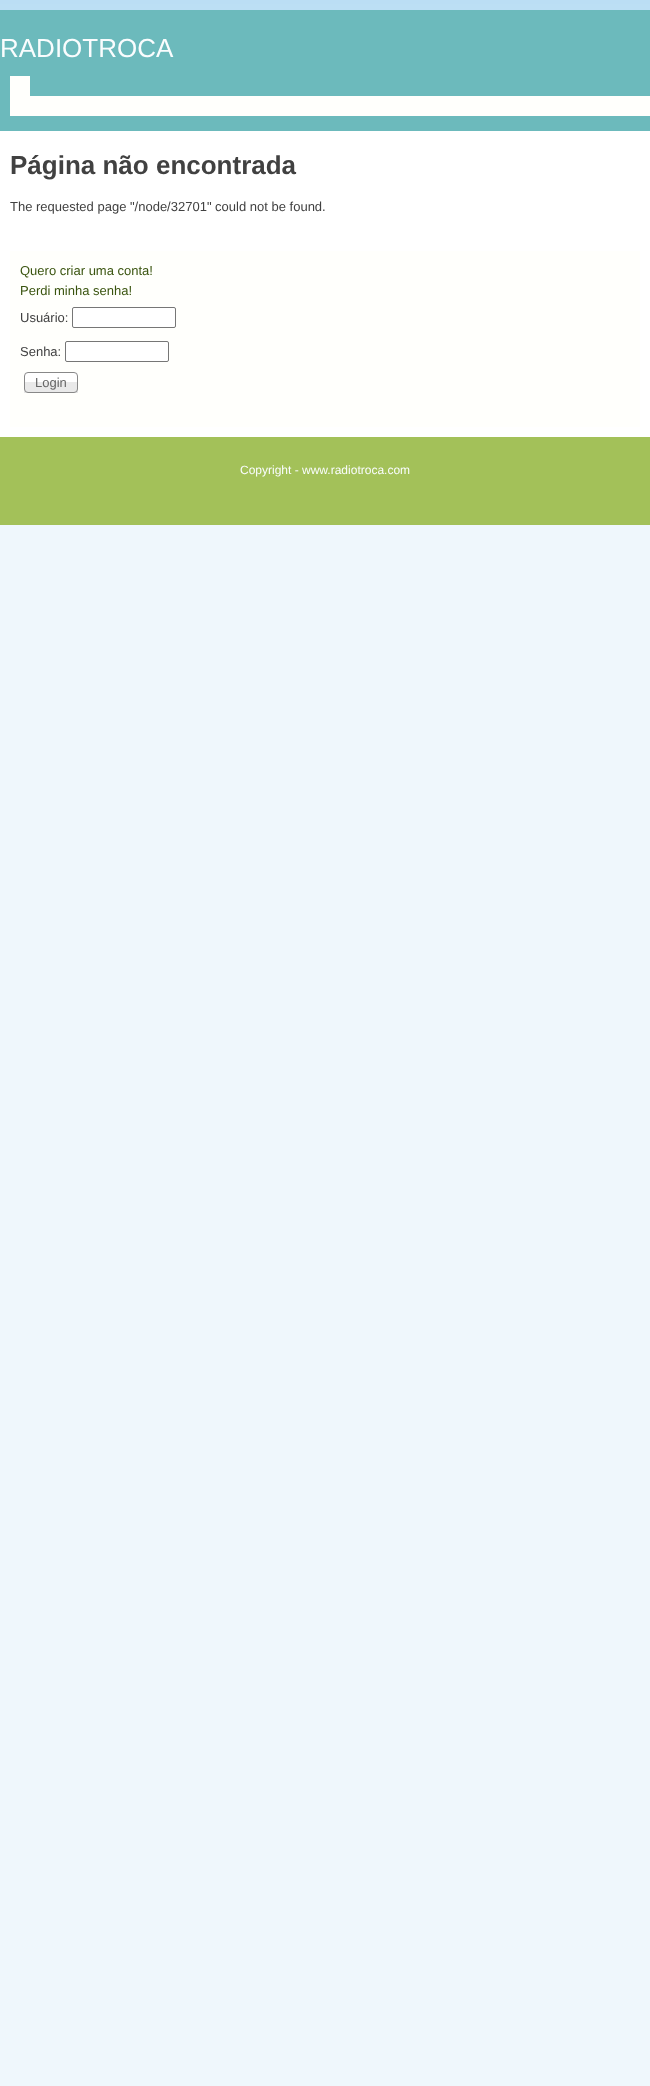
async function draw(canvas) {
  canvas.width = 650;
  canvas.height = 2086;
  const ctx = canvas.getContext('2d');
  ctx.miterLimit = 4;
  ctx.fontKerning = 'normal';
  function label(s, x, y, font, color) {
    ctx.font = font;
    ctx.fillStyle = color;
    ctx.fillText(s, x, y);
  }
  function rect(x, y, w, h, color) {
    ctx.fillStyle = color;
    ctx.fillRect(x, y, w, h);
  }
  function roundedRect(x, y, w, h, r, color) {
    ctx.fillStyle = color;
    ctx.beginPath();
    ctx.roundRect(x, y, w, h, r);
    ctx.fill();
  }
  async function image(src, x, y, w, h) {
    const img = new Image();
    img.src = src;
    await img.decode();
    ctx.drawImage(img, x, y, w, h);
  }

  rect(0, 0, 650, 2086, '#eff7fc');
  await image('assets/img1.png', 0, 0, 650, 10);
  rect(0, 131, 650, 306, '#fff');
  rect(0, 10, 650, 121, '#6cbabc');
  label('RADIOTROCA', 0, 57, '26px Liberation Sans', '#fafdfe');
  rect(10, 76, 20, 20, '#fffffc');
  rect(10, 96, 640, 20, '#fffffc');
  label('Página não encontrada', 10, 174, 'bold 26px Liberation Sans', '#414141');
  label('The requested page "/node/32701" could not be found.', 10, 211, '13px Liberation Sans', '#414141');
  rect(10, 251, 630, 176, '#fffffc');
  label('Quero criar uma conta!', 20, 275, '13px Liberation Sans', '#3a540f');
  label('Perdi minha senha!', 20, 295, '13px Liberation Sans', '#3a540f');
  label('Usuário:', 20, 322, '13px Liberation Sans', '#414141');
  ctx.fillStyle = '#fff';
  ctx.beginPath();
  ctx.roundRect(72.5, 307.5, 103, 20, 1.5);
  ctx.fill();
  ctx.strokeStyle = '#767676';
  ctx.stroke();
  label('Senha:', 20, 356, '13px Liberation Sans', '#414141');
  ctx.fillStyle = '#fff';
  ctx.beginPath();
  ctx.roundRect(65.5, 341.5, 103, 20, 1.5);
  ctx.fill();
  ctx.stroke();
  roundedRect(24, 372, 54, 21, 4, '#fff');
  rect(24, 382, 54, 11, '#e9e9e9');
  ctx.beginPath();
  ctx.roundRect(24.5, 372.5, 53, 20, 3.5);
  ctx.strokeStyle = '#888';
  ctx.stroke();
  label('Login', 35, 387, '13px Liberation Sans', '#666');
  rect(0, 437, 650, 88, '#a3c159');
  label('Copyright - www.radiotroca.com', 240, 474, '12px Liberation Sans', '#fafdfe');
}

draw(document.querySelector('canvas'));
